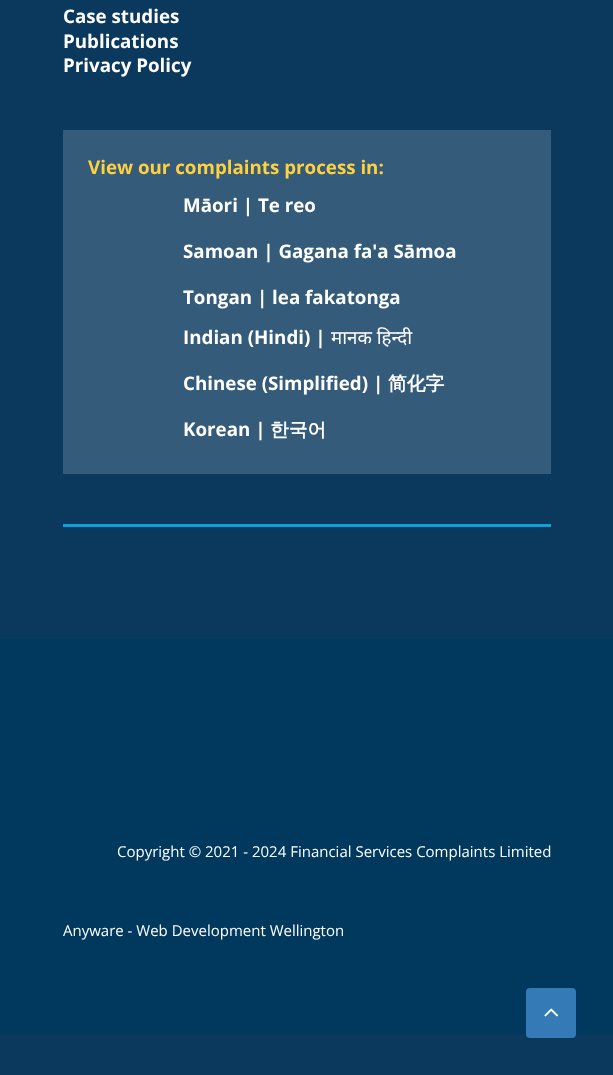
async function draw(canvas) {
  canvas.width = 613;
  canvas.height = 1075;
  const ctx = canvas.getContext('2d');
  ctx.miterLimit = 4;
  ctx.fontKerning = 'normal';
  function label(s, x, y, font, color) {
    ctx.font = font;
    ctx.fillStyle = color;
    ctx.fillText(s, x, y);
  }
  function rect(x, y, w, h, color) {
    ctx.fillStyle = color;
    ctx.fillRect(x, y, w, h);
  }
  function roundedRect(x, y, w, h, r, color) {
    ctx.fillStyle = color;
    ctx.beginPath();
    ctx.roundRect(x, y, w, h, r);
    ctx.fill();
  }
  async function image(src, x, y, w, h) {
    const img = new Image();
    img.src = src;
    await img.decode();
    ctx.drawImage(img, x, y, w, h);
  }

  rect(0, 0, 613, 1075, '#0b395e');
  label('Case studies', 63, 23, 'bold 18.75px Open Sans', '#fff');
  label('Publications', 63, 48, 'bold 18.75px Open Sans', '#fff');
  label('Privacy Policy', 63, 72, 'bold 18.75px Open Sans', '#fff');
  rect(63, 130, 488, 344, '#345b79');
  label('View our complaints process in:', 88, 174, 'bold 18.75px Open Sans', '#ffd040');
  label('Māori | Te reo', 183, 212, 'bold 18.75px Open Sans', '#fff');
  label('Samoan | Gagana fa\'a Sāmoa', 183, 258, 'bold 18.75px Open Sans', '#fff');
  label('Tongan | lea fakatonga', 183, 304, 'bold 18.75px Open Sans', '#fff');
  label('Indian (Hindi) |', 183, 344, 'bold 18.75px Open Sans', '#fff');
  label('मानक हिन्दी', 331, 344, '18.75px Noto Sans', '#fff');
  label('Chinese (Simplified) |', 183, 390, 'bold 18.75px Open Sans', '#fff');
  label('简化字', 388, 390, 'bold 18.75px WenQuanYi Zen Hei', '#fff');
  label('Korean |', 183, 436, 'bold 18.75px Open Sans', '#fff');
  label('한국어', 270, 436, 'bold 18.75px WenQuanYi Zen Hei', '#fff');
  rect(63, 524, 488, 3, '#0ea0db');
  rect(0, 639, 613, 395, '#01395e');
  label('Copyright © 2021 - 2024 Financial Services Complaints Limited', 117, 857, '15px Open Sans', '#fff');
  label('Anyware - Web Development Wellington', 63, 936, '15px Open Sans', '#fff');
  roundedRect(526, 988, 50, 50, 4, '#337ab7');
  await image('assets/img1.png', 544, 1008, 15, 9);
}

draw(document.querySelector('canvas'));
